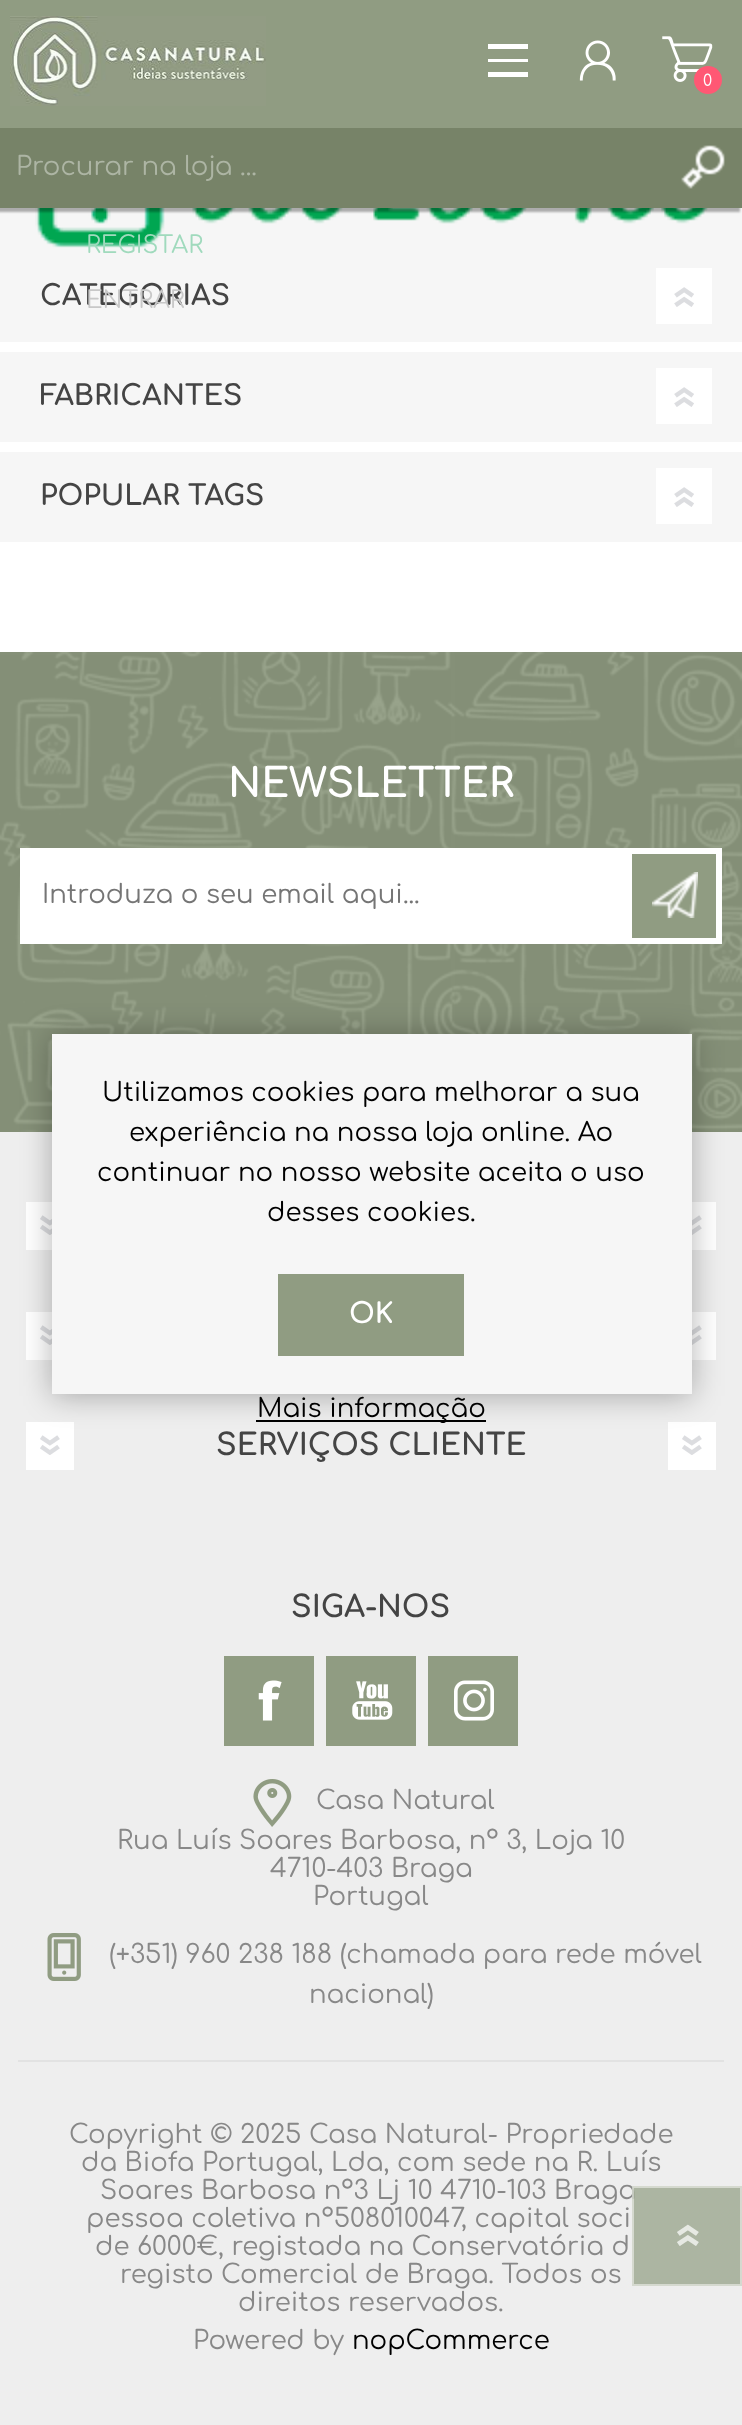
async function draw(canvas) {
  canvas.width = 742;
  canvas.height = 2425;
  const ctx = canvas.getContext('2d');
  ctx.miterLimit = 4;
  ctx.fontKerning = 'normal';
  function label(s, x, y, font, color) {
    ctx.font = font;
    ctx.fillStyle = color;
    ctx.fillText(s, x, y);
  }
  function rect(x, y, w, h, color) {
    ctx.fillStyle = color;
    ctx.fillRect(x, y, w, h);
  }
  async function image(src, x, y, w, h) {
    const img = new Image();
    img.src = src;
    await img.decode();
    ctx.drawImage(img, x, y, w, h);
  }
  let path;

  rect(0, 0, 742, 2425, '#fff');
  rect(0, 0, 742, 128, '#909c82');
  ctx.fillStyle = '#fff';
  path = new Path2D('M488 44V49H528V44ZM488 62H528V59H488ZM488 77H528V72H488Z');
  ctx.fill(path);
  await image('assets/img1.png', 662, 36, 51, 46);
  ctx.fillStyle = '#ff5874';
  ctx.beginPath();
  ctx.arc(708, 80, 14, 0, 2 * Math.PI);
  ctx.fill();
  label('0', 703, 86, '16px Comfortaa', '#fff');
  await image('assets/img2.png', 579, 40, 37, 41);
  rect(0, 208, 742, 334, '#f6f6f6');
  await image('assets/img5.png', 35, 208, 673, 40);
  label('REGISTAR', 86, 253, '24px Comfortaa', '#a0dabd');
  label('CATEGORIAS', 40, 305, 'bold 28px Comfortaa', '#444');
  label('ENTRAR', 86, 308, '24px Comfortaa', '#c8c8c8');
  await image('assets/img3.png', 10, 16, 256, 90);
  ctx.fillStyle = '#0000004d';
  ctx.filter = 'blur(1px)';
  ctx.beginPath();
  ctx.rect(-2, 132, 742, 80);
  ctx.fill();
  ctx.filter = 'none';
  rect(0, 128, 742, 80, '#778368');
  label('Procurar na loja ...', 16, 175, '26px Comfortaa', '#adb5a4');
  await image('assets/img4.png', 681, 145, 44, 44);
  rect(0, 342, 742, 10, '#fff');
  rect(656, 268, 56, 56, '#fff');
  await image('assets/img6.png', 674, 287, 20, 20);
  rect(0, 442, 742, 10, '#fff');
  label('FABRICANTES', 40, 405, 'bold 28px Comfortaa', '#444');
  rect(656, 368, 56, 56, '#fff');
  await image('assets/img6.png', 674, 387, 20, 20);
  label('POPULAR TAGS', 40, 505, 'bold 28px Comfortaa', '#444');
  rect(656, 468, 56, 56, '#fff');
  await image('assets/img6.png', 674, 487, 20, 20);
  rect(0, 1132, 742, 1293, '#eee');
  rect(0, 652, 742, 480, '#909c82');
  await image('assets/img7.png', 0, 652, 742, 480);
  label('NEWSLETTER', 228, 797, 'bold 40px Comfortaa', '#fff');
  rect(20, 848, 702, 96, '#fff');
  label('Introduza o seu email aqui...', 42, 903, '26px Comfortaa', '#757575');
  rect(632, 854, 84, 84, '#909c82');
  await image('assets/img8.png', 652, 872, 46, 46);
  rect(26, 1202, 26, 48, '#fff');
  await image('assets/img9.png', 40, 1215, 12, 20);
  rect(692, 1202, 24, 48, '#fff');
  await image('assets/img10.png', 692, 1215, 10, 20);
  rect(26, 1312, 26, 48, '#fff');
  await image('assets/img9.png', 40, 1325, 12, 20);
  rect(692, 1312, 24, 48, '#fff');
  await image('assets/img10.png', 692, 1325, 10, 20);
  rect(26, 1422, 48, 48, '#fff');
  await image('assets/img11.png', 40, 1435, 20, 20);
  label('SERVIÇOS CLIENTE', 216, 1455, 'bold 30px Comfortaa', '#444');
  rect(668, 1422, 48, 48, '#fff');
  await image('assets/img11.png', 682, 1435, 20, 20);
  label('SIGA-NOS', 291, 1617, 'bold 30px Comfortaa', '#444');
  rect(224, 1656, 90, 90, '#909c82');
  await image('assets/img12.png', 258, 1680, 24, 41);
  rect(326, 1656, 90, 90, '#909c82');
  await image('assets/img13.png', 352, 1681, 41, 39);
  rect(428, 1656, 90, 90, '#909c82');
  await image('assets/img14.png', 454, 1680, 40, 41);
  await image('assets/img15.png', 253, 1779, 39, 48);
  label('Casa Natural', 316, 1809, '26px Comfortaa', '#888');
  label('Rua Luís Soares Barbosa, nº 3, Loja 10', 117, 1849, '26px Comfortaa', '#888');
  label('4710-403 Braga', 270, 1877, '26px Comfortaa', '#888');
  label('Portugal', 313, 1905, '26px Comfortaa', '#888');
  await image('assets/img16.png', 47, 1933, 34, 48);
  label('(+351) 960 238 188 (chamada para rede móvel', 109, 1963, '26px Comfortaa', '#888');
  label('nacional)', 309, 2003, '26px Comfortaa', '#888');
  rect(18, 2060, 706, 2, '#e2e2e2');
  label('Copyright © 2025 Casa Natural- Propriedade', 69, 2143, '26px Comfortaa', '#888');
  label('da Biofa Portugal, Lda, com sede na R. Luís', 81, 2171, '26px Comfortaa', '#888');
  label('Soares Barbosa nº3 Lj 10 4710-103 Braga', 100, 2199, '26px Comfortaa', '#888');
  label('pessoa coletiva nº508010047, capital soci', 86, 2227, '26px Comfortaa', '#888');
  label('de 6000€, registada na Conservatória d', 95, 2255, '26px Comfortaa', '#888');
  label('registo Comercial de Braga. Todos os', 120, 2283, '26px Comfortaa', '#888');
  label('direitos reservados.', 238, 2311, '26px Comfortaa', '#888');
  label('Powered by', 193, 2349, '26px Comfortaa', '#888');
  label('nopCommerce', 352, 2349, '26px Comfortaa', '#000');
  ctx.fillStyle = '#0000004d';
  ctx.filter = 'blur(15px)';
  ctx.beginPath();
  ctx.rect(52, 1036, 640, 360);
  ctx.fill();
  ctx.filter = 'none';
  rect(52, 1034, 640, 360, '#f6f6f6');
  label('Utilizamos cookies para melhorar a sua', 102, 1101, '26px Comfortaa', '#000');
  label('experiência na nossa loja online. Ao', 129, 1141, '26px Comfortaa', '#000');
  label('continuar no nosso website aceita o uso', 97, 1181, '26px Comfortaa', '#000');
  label('desses cookies.', 267, 1221, '26px Comfortaa', '#000');
  rect(278, 1274, 186, 82, '#909c82');
  label('OK', 349, 1323, 'bold 28px Comfortaa', '#fff');
  rect(256, 1420, 230, 2, '#000');
  label('Mais informação', 257, 1417, '26px Comfortaa', '#000');
  rect(632, 2186, 110, 100, '#909c82b3');
  ctx.strokeStyle = '#ffffff7d';
  ctx.lineWidth = 2;
  ctx.strokeRect(633, 2187, 108, 98);
  await image('assets/img17.png', 677, 2224, 22, 22);
}

draw(document.querySelector('canvas'));
